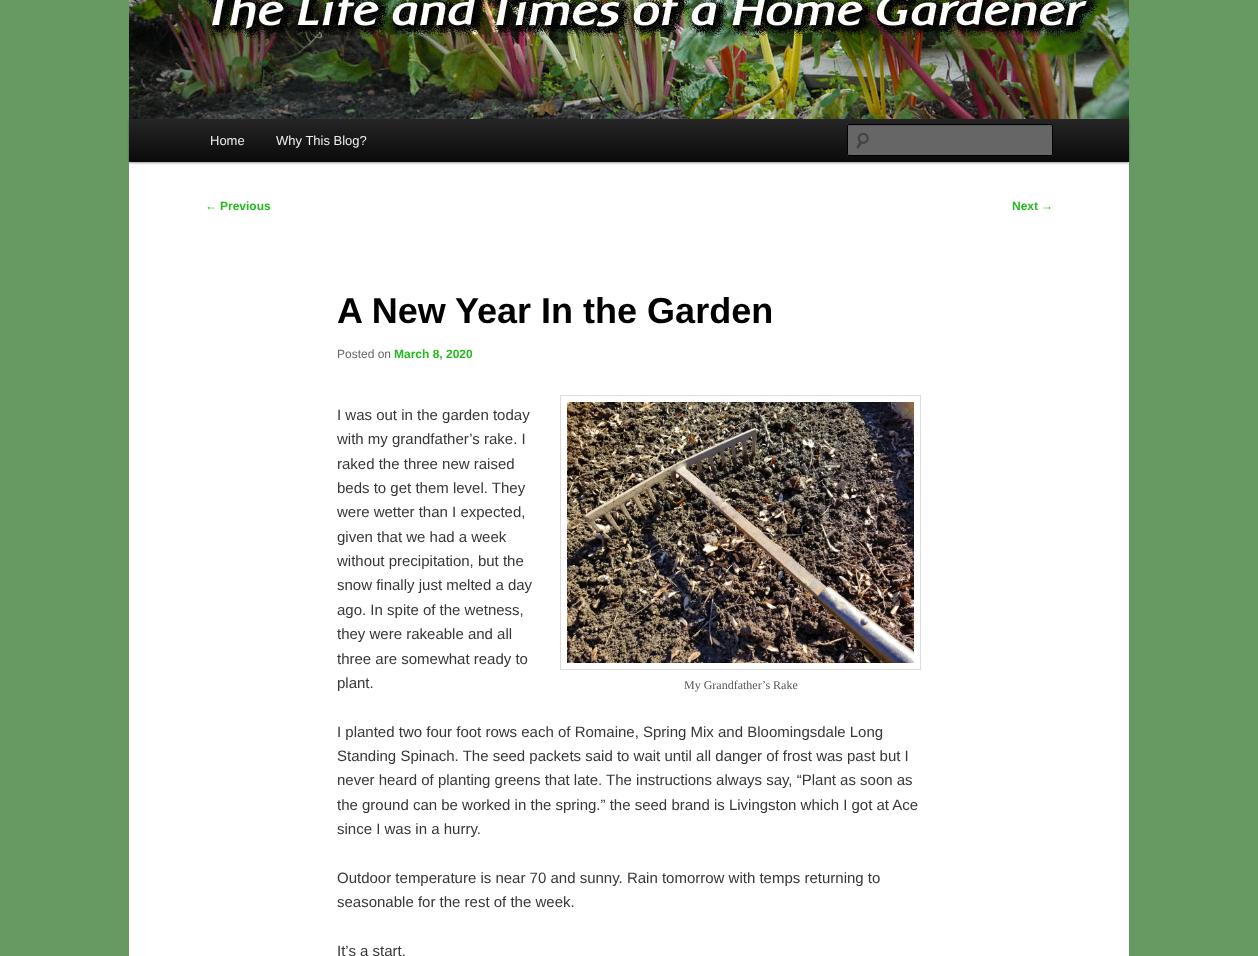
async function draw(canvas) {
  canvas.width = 1258;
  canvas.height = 956;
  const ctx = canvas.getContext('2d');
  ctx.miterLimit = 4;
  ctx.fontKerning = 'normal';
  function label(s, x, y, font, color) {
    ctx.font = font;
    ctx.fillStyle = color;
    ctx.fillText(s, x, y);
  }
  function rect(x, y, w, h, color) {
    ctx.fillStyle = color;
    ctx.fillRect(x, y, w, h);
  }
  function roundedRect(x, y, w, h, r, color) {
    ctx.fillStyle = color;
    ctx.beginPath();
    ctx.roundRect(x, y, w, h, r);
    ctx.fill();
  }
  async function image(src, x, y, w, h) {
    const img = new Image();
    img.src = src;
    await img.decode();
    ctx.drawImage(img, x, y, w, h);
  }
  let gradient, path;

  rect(0, 0, 1258, 956, '#679963');
  rect(129, 162, 1000, 794, '#fff');
  ctx.fillStyle = '#00000066';
  ctx.filter = 'blur(1px)';
  ctx.beginPath();
  ctx.rect(129, 120, 1000, 43);
  ctx.fill();
  ctx.filter = 'none';
  await image('assets/img1.png', 129, 0, 1000, 119);
  gradient = ctx.createLinearGradient(629, 119, 629, 162);
  gradient.addColorStop(0, '#252525');
  gradient.addColorStop(1, '#0a0a0a');
  ctx.fillStyle = gradient;
  ctx.fillRect(129, 119, 1000, 43);
  label('Home', 210, 145, '13px Liberation Sans', '#eee');
  label('Why This Blog?', 276, 145, '13px Liberation Sans', '#eee');
  roundedRect(847, 124, 206, 32, 2, '#666');
  await image('assets/img2.png', 856, 132, 13, 17);
  ctx.fillStyle = '#5c5c5c';
  path = new Path2D('M849 126H1052V127V125H1051H849C848 125 848 126 848 127C848 126 848 126 849 126Z');
  ctx.fill(path);
  ctx.beginPath();
  ctx.roundRect(847.5, 124.5, 205, 31, 1.5);
  ctx.strokeStyle = '#000';
  ctx.stroke();
  label('←', 205, 210, '12px Liberation Sans', '#23bb1b');
  label('Previous', 220, 210, 'bold 12px Liberation Sans', '#23bb1b');
  label('Next', 1012, 210, 'bold 12px Liberation Sans', '#23bb1b');
  label('→', 1041, 210, '12px Liberation Sans', '#23bb1b');
  label('A New Year In the Garden', 337, 323, 'bold 36px Liberation Sans', '#000');
  label('Posted on', 337, 358, '12px Liberation Sans', '#666');
  label('March 8, 2020', 394, 358, 'bold 12px Liberation Sans', '#23bb1b');
  label('I was out in the garden today', 337, 420, '15px Liberation Sans', '#373737');
  label('with my grandfather’s rake. I', 337, 444, '15px Liberation Sans', '#373737');
  label('raked the three new raised', 337, 469, '15px Liberation Sans', '#373737');
  label('beds to get them level. They', 337, 493, '15px Liberation Sans', '#373737');
  label('were wetter than I expected,', 337, 517, '15px Liberation Sans', '#373737');
  label('given that we had a week', 337, 542, '15px Liberation Sans', '#373737');
  label('without precipitation, but the', 337, 566, '15px Liberation Sans', '#373737');
  label('snow finally just melted a day', 337, 590, '15px Liberation Sans', '#373737');
  label('ago. In spite of the wetness,', 337, 615, '15px Liberation Sans', '#373737');
  label('they were rakeable and all', 337, 639, '15px Liberation Sans', '#373737');
  label('three are somewhat ready to', 337, 664, '15px Liberation Sans', '#373737');
  label('plant.', 337, 688, '15px Liberation Sans', '#373737');
  ctx.strokeStyle = '#ddd';
  ctx.strokeRect(560.5, 395.5, 360, 274);
  await image('assets/img3.png', 567, 402, 347, 261);
  label('My Grandfather’s Rake', 684, 689, '12px Liberation Serif', '#555');
  label('I planted two four foot rows each of Romaine, Spring Mix and Bloomingsdale Long', 337, 737, '15px Liberation Sans', '#373737');
  label('Standing Spinach. The seed packets said to wait until all danger of frost was past but I', 337, 761, '15px Liberation Sans', '#373737');
  label('never heard of planting greens that late. The instructions always say, “Plant as soon as', 337, 785, '15px Liberation Sans', '#373737');
  label('the ground can be worked in the spring.” the seed brand is Livingston which I got at Ace', 337, 810, '15px Liberation Sans', '#373737');
  label('since I was in a hurry.', 337, 834, '15px Liberation Sans', '#373737');
  label('Outdoor temperature is near 70 and sunny. Rain tomorrow with temps returning to', 337, 883, '15px Liberation Sans', '#373737');
  label('seasonable for the rest of the week.', 337, 907, '15px Liberation Sans', '#373737');
  label('It’s a start.', 337, 956, '15px Liberation Sans', '#373737');
}

draw(document.querySelector('canvas'));
